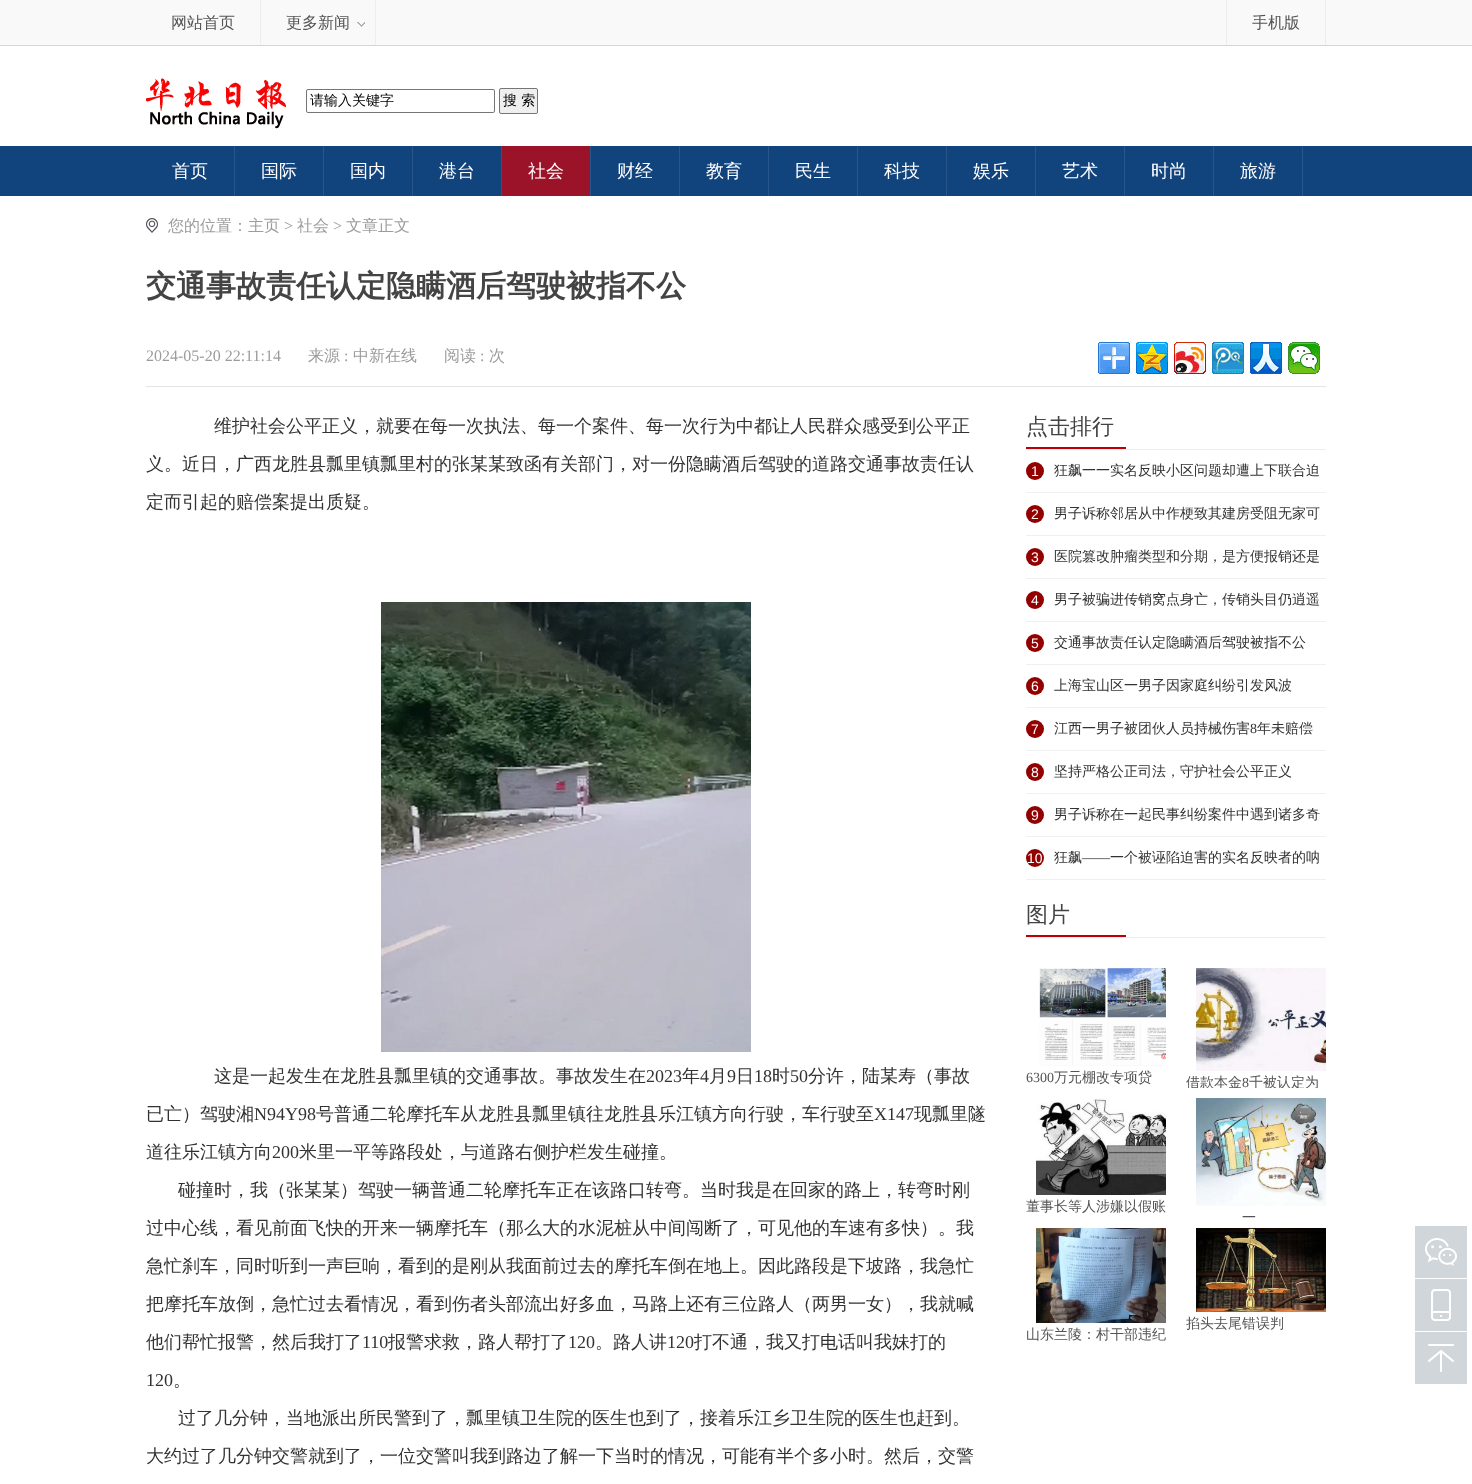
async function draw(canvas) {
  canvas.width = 1472;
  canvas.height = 1484;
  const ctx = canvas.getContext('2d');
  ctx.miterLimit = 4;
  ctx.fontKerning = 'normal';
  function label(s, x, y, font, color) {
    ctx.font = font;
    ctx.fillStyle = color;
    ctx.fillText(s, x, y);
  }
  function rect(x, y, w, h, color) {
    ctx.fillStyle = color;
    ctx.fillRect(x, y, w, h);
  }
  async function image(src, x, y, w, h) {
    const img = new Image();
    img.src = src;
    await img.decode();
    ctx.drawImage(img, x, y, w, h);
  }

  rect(0, 0, 1472, 1484, '#fff');
  rect(0, 0, 1472, 45, '#f9f9f9');
  rect(0, 45, 1472, 1, '#d6d6d6');
  rect(260, 0, 1, 45, '#ededed');
  label('网站首页', 171, 28, '500 16px WenQuanYi Zen Hei', '#545454');
  rect(375, 0, 1, 45, '#ededed');
  label('更多新闻', 286, 28, '500 16px WenQuanYi Zen Hei', '#545454');
  await image('assets/img1.png', 357, 22, 8, 5);
  rect(1325, 0, 1, 45, '#ededed');
  rect(1226, 0, 1, 45, '#ededed');
  label('手机版', 1252, 28, '500 16px WenQuanYi Zen Hei', '#545454');
  await image('assets/img2.png', 146, 78, 140, 51);
  ctx.beginPath();
  ctx.roundRect(306.5, 89.5, 188, 23, 1.5);
  ctx.strokeStyle = '#767676';
  ctx.stroke();
  label('请输入关键字', 310, 105, '500 14px WenQuanYi Zen Hei', '#000');
  ctx.fillStyle = '#efefef';
  ctx.beginPath();
  ctx.roundRect(499.5, 88.5, 38, 25, 1.5);
  ctx.fill();
  ctx.stroke();
  label('搜 索', 503, 105, '500 14px WenQuanYi Zen Hei', '#000');
  rect(0, 146, 1472, 50, '#11437d');
  rect(234, 146, 1, 50, '#29568a');
  label('首页', 172, 177, '500 18px WenQuanYi Zen Hei', '#fff');
  rect(323, 146, 1, 50, '#29568a');
  label('国际', 261, 177, '500 18px WenQuanYi Zen Hei', '#fff');
  rect(412, 146, 1, 50, '#29568a');
  label('国内', 350, 177, '500 18px WenQuanYi Zen Hei', '#fff');
  rect(501, 146, 1, 50, '#29568a');
  label('港台', 439, 177, '500 18px WenQuanYi Zen Hei', '#fff');
  rect(502, 146, 88, 50, '#9b1329');
  rect(590, 146, 1, 50, '#29568a');
  label('社会', 528, 177, '500 18px WenQuanYi Zen Hei', '#fff');
  rect(679, 146, 1, 50, '#29568a');
  label('财经', 617, 177, '500 18px WenQuanYi Zen Hei', '#fff');
  rect(768, 146, 1, 50, '#29568a');
  label('教育', 706, 177, '500 18px WenQuanYi Zen Hei', '#fff');
  rect(857, 146, 1, 50, '#29568a');
  label('民生', 795, 177, '500 18px WenQuanYi Zen Hei', '#fff');
  rect(946, 146, 1, 50, '#29568a');
  label('科技', 884, 177, '500 18px WenQuanYi Zen Hei', '#fff');
  rect(1035, 146, 1, 50, '#29568a');
  label('娱乐', 973, 177, '500 18px WenQuanYi Zen Hei', '#fff');
  rect(1124, 146, 1, 50, '#29568a');
  label('艺术', 1062, 177, '500 18px WenQuanYi Zen Hei', '#fff');
  rect(1213, 146, 1, 50, '#29568a');
  label('时尚', 1151, 177, '500 18px WenQuanYi Zen Hei', '#fff');
  rect(1302, 146, 1, 50, '#29568a');
  label('旅游', 1240, 177, '500 18px WenQuanYi Zen Hei', '#fff');
  await image('assets/img3.png', 146, 218, 12, 15);
  label('您的位置：', 168, 231, '500 16px WenQuanYi Zen Hei', '#9c9c9c');
  label('主页', 248, 231, '500 16px WenQuanYi Zen Hei', '#9c9c9c');
  label('>', 284, 231, '16px Liberation Serif', '#9c9c9c');
  label('社会', 297, 231, '500 16px WenQuanYi Zen Hei', '#9c9c9c');
  label('>', 333, 231, '16px Liberation Serif', '#9c9c9c');
  label('文章正文', 346, 231, '500 16px WenQuanYi Zen Hei', '#9c9c9c');
  label('交通事故责任认定隐瞒酒后驾驶被指不公', 146, 296, 'bold 30px WenQuanYi Zen Hei', '#444');
  label('2024-05-20 22:11:14', 146, 361, '16px Liberation Serif', '#9c9c9c');
  label('来源', 308, 361, '500 16px WenQuanYi Zen Hei', '#9c9c9c');
  label(':', 344, 361, '16px Liberation Serif', '#9c9c9c');
  label('中新在线', 353, 361, '500 16px WenQuanYi Zen Hei', '#9c9c9c');
  label('阅读', 444, 361, '500 16px WenQuanYi Zen Hei', '#9c9c9c');
  label(':', 480, 361, '16px Liberation Serif', '#9c9c9c');
  label('次', 489, 361, '500 16px WenQuanYi Zen Hei', '#9c9c9c');
  await image('assets/img4.png', 1098, 342, 32, 32);
  await image('assets/img5.png', 1136, 342, 32, 32);
  await image('assets/img6.png', 1174, 342, 32, 32);
  await image('assets/img7.png', 1212, 342, 32, 32);
  await image('assets/img8.png', 1250, 342, 32, 32);
  await image('assets/img9.png', 1288, 342, 32, 32);
  rect(146, 386, 1180, 1, '#e4e4e4');
  label('维护社会公平正义，就要在每一次执法、每一个案件、每一次行为中都让人民群众感受到公平正', 214, 432, '500 18px WenQuanYi Zen Hei', '#323232');
  label('义。近日，广西龙胜县瓢里镇瓢里村的张某某致函有关部门，对一份隐瞒酒后驾驶的道路交通事故责任认', 146, 470, '500 18px WenQuanYi Zen Hei', '#323232');
  label('定而引起的赔偿案提出质疑。', 146, 508, '500 18px WenQuanYi Zen Hei', '#323232');
  await image('assets/img10.png', 381, 602, 370, 450);
  label('这是一起发生在龙胜县瓢里镇的交通事故。事故发生在', 214, 1082, '500 18px WenQuanYi Zen Hei', '#323232');
  label('2023', 646, 1082, '18px Liberation Serif', '#323232');
  label('年', 682, 1082, '500 18px WenQuanYi Zen Hei', '#323232');
  label('4', 700, 1082, '18px Liberation Serif', '#323232');
  label('月', 709, 1082, '500 18px WenQuanYi Zen Hei', '#323232');
  label('9', 727, 1082, '18px Liberation Serif', '#323232');
  label('日', 736, 1082, '500 18px WenQuanYi Zen Hei', '#323232');
  label('18', 754, 1082, '18px Liberation Serif', '#323232');
  label('时', 772, 1082, '500 18px WenQuanYi Zen Hei', '#323232');
  label('50', 790, 1082, '18px Liberation Serif', '#323232');
  label('分许，陆某寿（事故', 808, 1082, '500 18px WenQuanYi Zen Hei', '#323232');
  label('已亡）驾驶湘', 146, 1120, '500 18px WenQuanYi Zen Hei', '#323232');
  label('N94Y98', 254, 1120, '18px Liberation Serif', '#323232');
  label('号普通二轮摩托车从龙胜县瓢里镇往龙胜县乐江镇方向行驶，车行驶至', 316, 1120, '500 18px WenQuanYi Zen Hei', '#323232');
  label('X147', 874, 1120, '18px Liberation Serif', '#323232');
  label('现瓢里隧', 914, 1120, '500 18px WenQuanYi Zen Hei', '#323232');
  label('道往乐江镇方向', 146, 1158, '500 18px WenQuanYi Zen Hei', '#323232');
  label('200', 272, 1158, '18px Liberation Serif', '#323232');
  label('米里一平等路段处，与道路右侧护栏发生碰撞。', 299, 1158, '500 18px WenQuanYi Zen Hei', '#323232');
  label('碰撞时，我（张某某）驾驶一辆普通二轮摩托车正在该路口转弯。当时我是在回家的路上，转弯时刚', 178, 1196, '500 18px WenQuanYi Zen Hei', '#323232');
  label('过中心线，看见前面飞快的开来一辆摩托车（那么大的水泥桩从中间闯断了，可见他的车速有多快）。我', 146, 1234, '500 18px WenQuanYi Zen Hei', '#323232');
  label('急忙刹车，同时听到一声巨响，看到的是刚从我面前过去的摩托车倒在地上。因此路段是下坡路，我急忙', 146, 1272, '500 18px WenQuanYi Zen Hei', '#323232');
  label('把摩托车放倒，急忙过去看情况，看到伤者头部流出好多血，马路上还有三位路人（两男一女），我就喊', 146, 1310, '500 18px WenQuanYi Zen Hei', '#323232');
  label('他们帮忙报警，然后我打了', 146, 1348, '500 18px WenQuanYi Zen Hei', '#323232');
  label('110', 362, 1348, '18px Liberation Serif', '#323232');
  label('报警求救，路人帮打了', 388, 1348, '500 18px WenQuanYi Zen Hei', '#323232');
  label('120', 568, 1348, '18px Liberation Serif', '#323232');
  label('。路人讲', 595, 1348, '500 18px WenQuanYi Zen Hei', '#323232');
  label('120', 667, 1348, '18px Liberation Serif', '#323232');
  label('打不通，我又打电话叫我妹打的', 694, 1348, '500 18px WenQuanYi Zen Hei', '#323232');
  label('120', 146, 1386, '18px Liberation Serif', '#323232');
  label('。', 173, 1386, '500 18px WenQuanYi Zen Hei', '#323232');
  label('过了几分钟，当地派出所民警到了，瓢里镇卫生院的医生也到了，接着乐江乡卫生院的医生也赶到。', 178, 1424, '500 18px WenQuanYi Zen Hei', '#323232');
  label('大约过了几分钟交警就到了，一位交警叫我到路边了解一下当时的情况，可能有半个多小时。然后，交警', 146, 1462, '500 18px WenQuanYi Zen Hei', '#323232');
  rect(1026, 449, 300, 1, '#eee');
  rect(1026, 447, 100, 2, '#bd0008');
  label('点击排行', 1026, 434, '500 22px WenQuanYi Zen Hei', '#444');
  rect(1026, 492, 300, 1, '#f0f0f0');
  ctx.fillStyle = '#930000';
  ctx.beginPath();
  ctx.arc(1035, 471, 9, 0, 2 * Math.PI);
  ctx.fill();
  label('1', 1031, 476, '14px Liberation Sans', '#fff');
  label('狂飙一一实名反映小区问题却遭上下联合迫', 1054, 475, '500 14px WenQuanYi Zen Hei', '#323232');
  rect(1026, 535, 300, 1, '#f0f0f0');
  ctx.fillStyle = '#930000';
  ctx.beginPath();
  ctx.arc(1035, 514, 9, 0, 2 * Math.PI);
  ctx.fill();
  label('2', 1031, 519, '14px Liberation Sans', '#fff');
  label('男子诉称邻居从中作梗致其建房受阻无家可', 1054, 518, '500 14px WenQuanYi Zen Hei', '#323232');
  rect(1026, 578, 300, 1, '#f0f0f0');
  ctx.fillStyle = '#930000';
  ctx.beginPath();
  ctx.arc(1035, 557, 9, 0, 2 * Math.PI);
  ctx.fill();
  label('3', 1031, 562, '14px Liberation Sans', '#fff');
  label('医院篡改肿瘤类型和分期，是方便报销还是', 1054, 561, '500 14px WenQuanYi Zen Hei', '#323232');
  rect(1026, 621, 300, 1, '#f0f0f0');
  ctx.fillStyle = '#930000';
  ctx.beginPath();
  ctx.arc(1035, 600, 9, 0, 2 * Math.PI);
  ctx.fill();
  label('4', 1031, 605, '14px Liberation Sans', '#fff');
  label('男子被骗进传销窝点身亡，传销头目仍逍遥', 1054, 604, '500 14px WenQuanYi Zen Hei', '#323232');
  rect(1026, 664, 300, 1, '#f0f0f0');
  ctx.fillStyle = '#930000';
  ctx.beginPath();
  ctx.arc(1035, 643, 9, 0, 2 * Math.PI);
  ctx.fill();
  label('5', 1031, 648, '14px Liberation Sans', '#fff');
  label('交通事故责任认定隐瞒酒后驾驶被指不公', 1054, 647, '500 14px WenQuanYi Zen Hei', '#323232');
  rect(1026, 707, 300, 1, '#f0f0f0');
  ctx.fillStyle = '#930000';
  ctx.beginPath();
  ctx.arc(1035, 686, 9, 0, 2 * Math.PI);
  ctx.fill();
  label('6', 1031, 691, '14px Liberation Sans', '#fff');
  label('上海宝山区一男子因家庭纠纷引发风波', 1054, 690, '500 14px WenQuanYi Zen Hei', '#323232');
  rect(1026, 750, 300, 1, '#f0f0f0');
  ctx.fillStyle = '#930000';
  ctx.beginPath();
  ctx.arc(1035, 729, 9, 0, 2 * Math.PI);
  ctx.fill();
  label('7', 1031, 734, '14px Liberation Sans', '#fff');
  label('江西一男子被团伙人员持械伤害', 1054, 733, '500 14px WenQuanYi Zen Hei', '#323232');
  label('8', 1250, 733, '14px Liberation Serif', '#323232');
  label('年未赔偿', 1257, 733, '500 14px WenQuanYi Zen Hei', '#323232');
  rect(1026, 793, 300, 1, '#f0f0f0');
  ctx.fillStyle = '#930000';
  ctx.beginPath();
  ctx.arc(1035, 772, 9, 0, 2 * Math.PI);
  ctx.fill();
  label('8', 1031, 777, '14px Liberation Sans', '#fff');
  label('坚持严格公正司法，守护社会公平正义', 1054, 776, '500 14px WenQuanYi Zen Hei', '#323232');
  rect(1026, 836, 300, 1, '#f0f0f0');
  ctx.fillStyle = '#930000';
  ctx.beginPath();
  ctx.arc(1035, 815, 9, 0, 2 * Math.PI);
  ctx.fill();
  label('9', 1031, 820, '14px Liberation Sans', '#fff');
  label('男子诉称在一起民事纠纷案件中遇到诸多奇', 1054, 819, '500 14px WenQuanYi Zen Hei', '#323232');
  rect(1026, 879, 300, 1, '#f0f0f0');
  ctx.fillStyle = '#930000';
  ctx.beginPath();
  ctx.arc(1035, 858, 9, 0, 2 * Math.PI);
  ctx.fill();
  label('10', 1027, 863, '14px Liberation Sans', '#fff');
  label('狂飙', 1054, 862, '500 14px WenQuanYi Zen Hei', '#323232');
  label('——', 1082, 862, '14px Liberation Serif', '#323232');
  label('一个被诬陷迫害的实名反映者的呐', 1110, 862, '500 14px WenQuanYi Zen Hei', '#323232');
  rect(1026, 937, 300, 1, '#eee');
  rect(1026, 935, 100, 2, '#bd0008');
  label('图片', 1026, 922, '500 22px WenQuanYi Zen Hei', '#444');
  await image('assets/img11.png', 1039, 968, 127, 98);
  label('6300', 1026, 1082, '14px Liberation Serif', '#545454');
  label('万元棚改专项贷', 1054, 1082, '500 14px WenQuanYi Zen Hei', '#545454');
  await image('assets/img12.png', 1196, 968, 130, 103);
  ctx.save();
  ctx.beginPath();
  ctx.rect(1186, 1074, 140, 14);
  ctx.clip();
  label('借款本金', 1186, 1087, '500 14px WenQuanYi Zen Hei', '#545454');
  ctx.restore();
  label('8', 1242, 1087, '14px Liberation Serif', '#545454');
  ctx.save();
  ctx.beginPath();
  ctx.rect(1186, 1074, 140, 14);
  ctx.clip();
  label('千被认定为', 1249, 1087, '500 14px WenQuanYi Zen Hei', '#545454');
  ctx.restore();
  await image('assets/img13.png', 1036, 1098, 130, 97);
  label('董事长等人涉嫌以假账', 1026, 1211, '500 14px WenQuanYi Zen Hei', '#545454');
  await image('assets/img14.png', 1196, 1098, 130, 108);
  label('一', 1242, 1222, '500 14px WenQuanYi Zen Hei', '#545454');
  await image('assets/img15.png', 1196, 1228, 130, 84);
  label('掐头去尾错误判', 1186, 1328, '500 14px WenQuanYi Zen Hei', '#545454');
  await image('assets/img16.png', 1036, 1228, 130, 95);
  label('山东兰陵：村干部违纪', 1026, 1339, '500 14px WenQuanYi Zen Hei', '#545454');
  await image('assets/img17.png', 1415, 1226, 52, 52);
  await image('assets/img18.png', 1415, 1279, 52, 52);
  await image('assets/img19.png', 1415, 1332, 52, 52);
}

draw(document.querySelector('canvas'));
